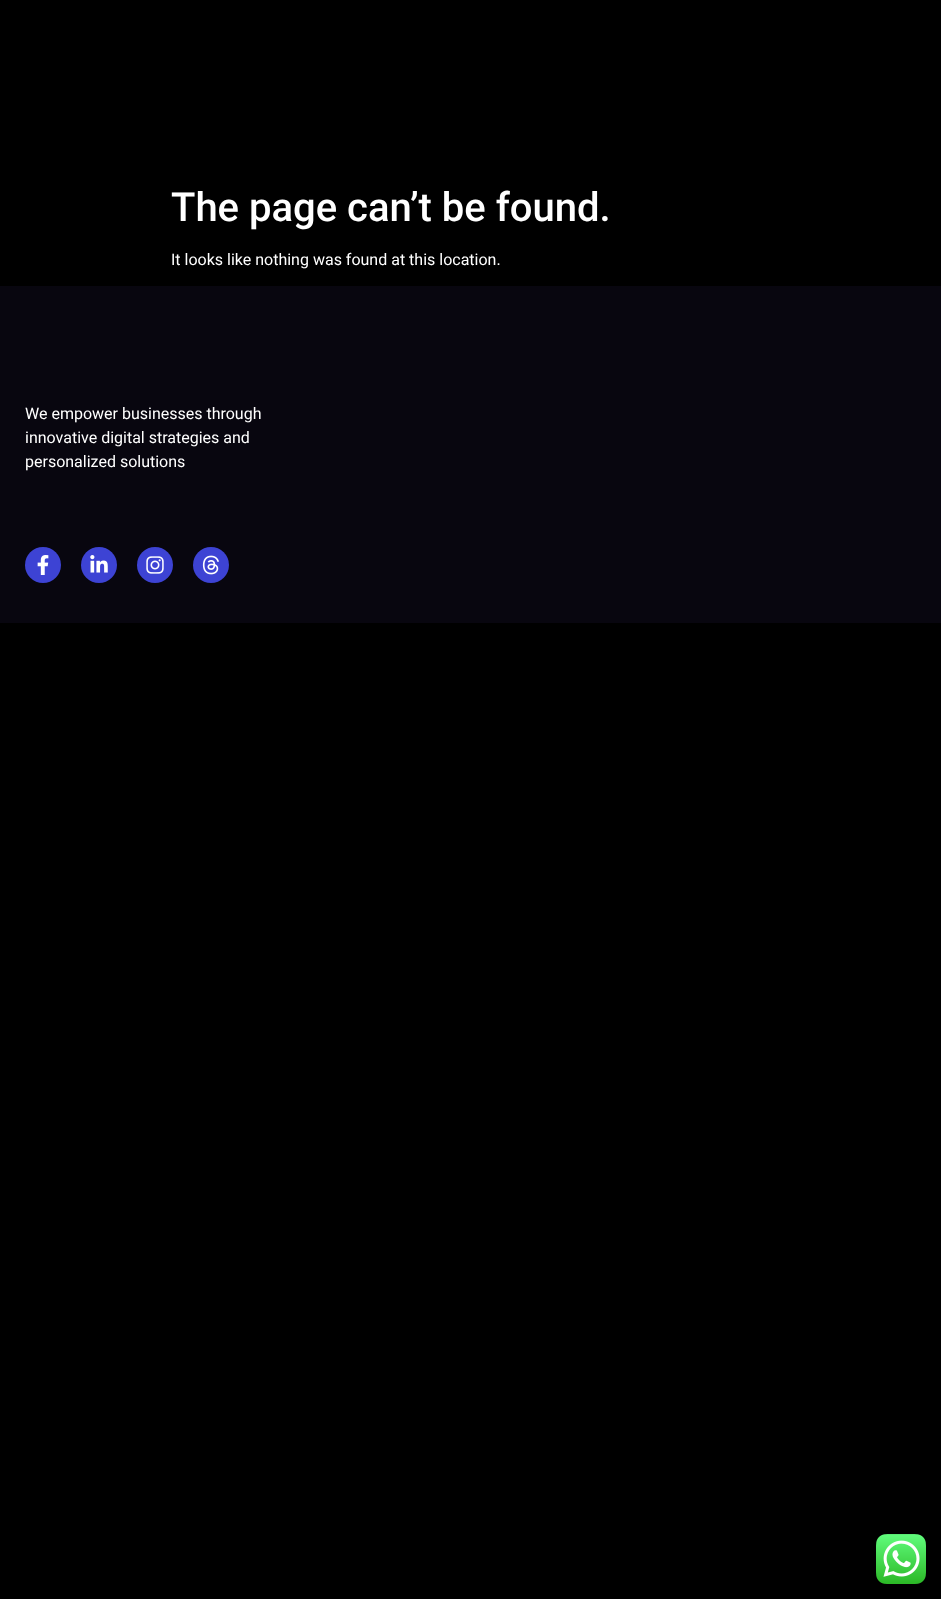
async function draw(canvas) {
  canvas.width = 941;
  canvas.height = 1599;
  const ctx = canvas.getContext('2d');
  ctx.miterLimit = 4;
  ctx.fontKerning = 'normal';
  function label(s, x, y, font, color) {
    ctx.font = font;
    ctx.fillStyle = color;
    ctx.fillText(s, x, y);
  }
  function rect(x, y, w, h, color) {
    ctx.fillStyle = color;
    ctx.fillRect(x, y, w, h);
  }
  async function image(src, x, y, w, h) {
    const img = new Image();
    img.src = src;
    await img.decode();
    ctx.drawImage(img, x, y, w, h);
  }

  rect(0, 0, 941, 1599, '#000');
  label('The page can’t be found.', 171, 221, '500 40px Roboto', '#fff');
  label('It looks like nothing was found at this location.', 171, 265, '16px Roboto', '#fff');
  rect(0, 286, 941, 337, '#08060f');
  label('We empower businesses through', 25, 419, '16px Roboto', '#fff');
  label('innovative digital strategies and', 25, 443, '16px Roboto', '#fff');
  label('personalized solutions', 25, 467, '16px Roboto', '#fff');
  ctx.fillStyle = '#3d43d4';
  ctx.beginPath();
  ctx.arc(43, 565, 18, 0, 2 * Math.PI);
  ctx.fill();
  await image('assets/img1.png', 37, 555, 12, 20);
  ctx.beginPath();
  ctx.arc(99, 565, 18, 0, 2 * Math.PI);
  ctx.fill();
  await image('assets/img2.png', 90, 555, 18, 18);
  ctx.beginPath();
  ctx.arc(155, 565, 18, 0, 2 * Math.PI);
  ctx.fill();
  await image('assets/img3.png', 146, 556, 18, 18);
  ctx.beginPath();
  ctx.arc(211, 565, 18, 0, 2 * Math.PI);
  ctx.fill();
  await image('assets/img4.png', 202, 555, 17, 20);
  await image('assets/img5.png', 876, 1534, 50, 50);
}

draw(document.querySelector('canvas'));
